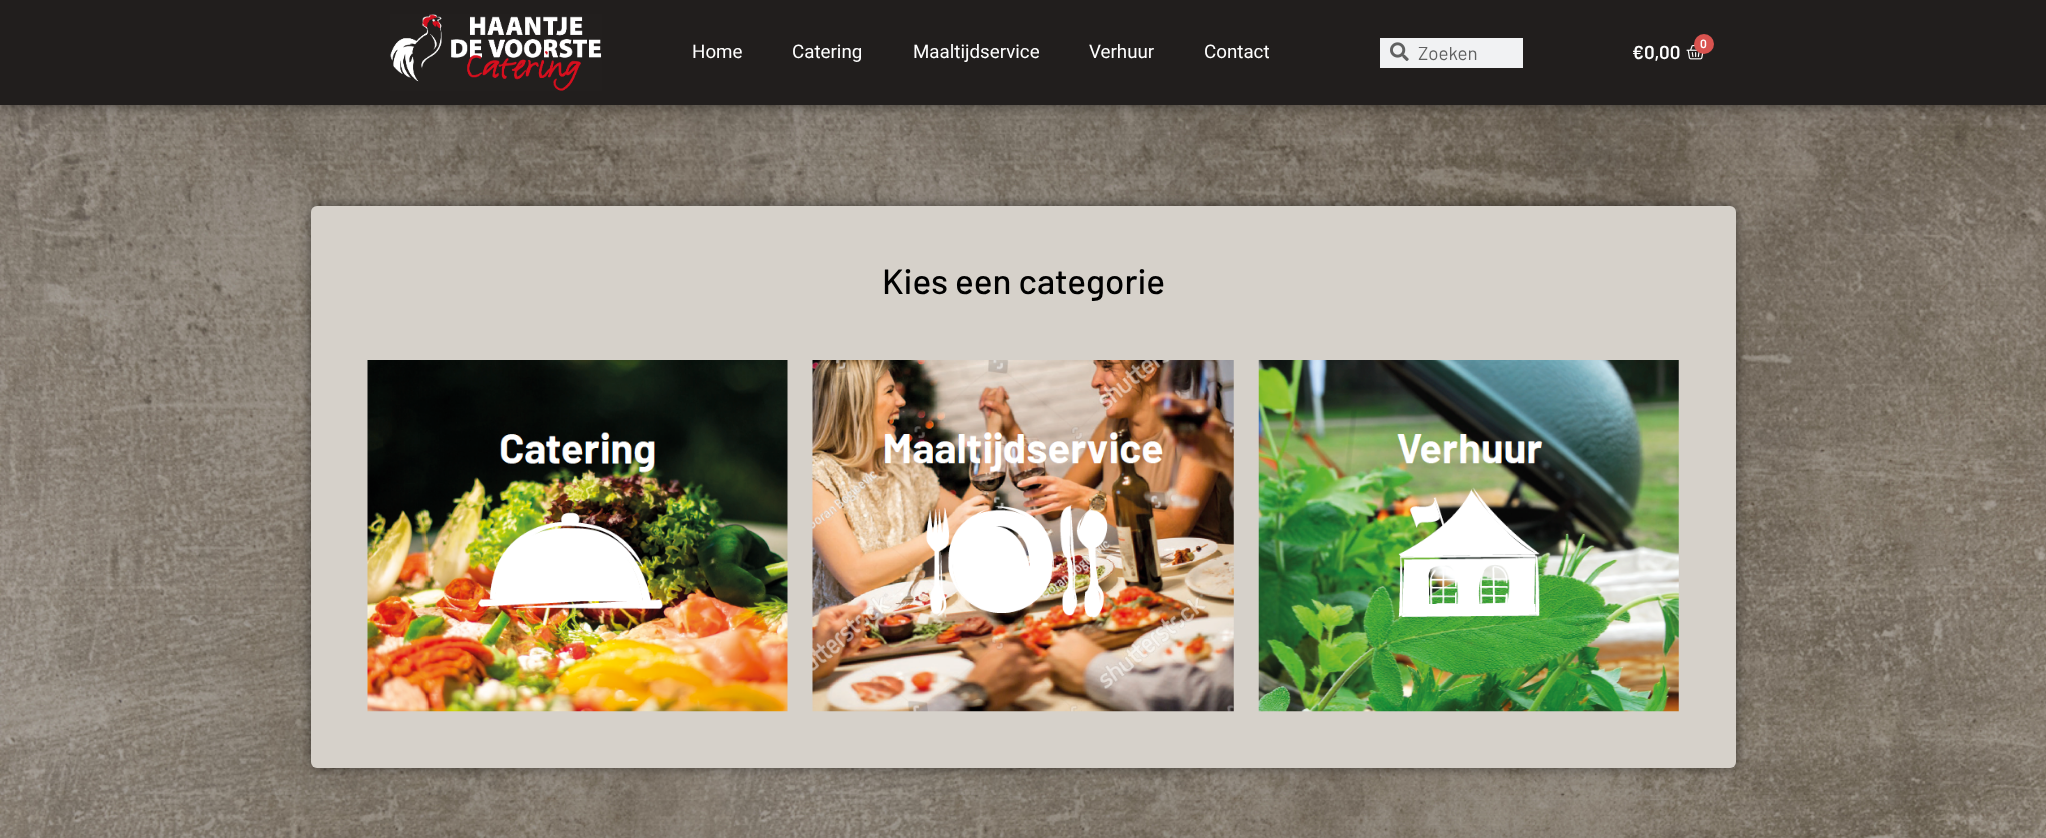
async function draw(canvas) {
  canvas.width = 2046;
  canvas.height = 838;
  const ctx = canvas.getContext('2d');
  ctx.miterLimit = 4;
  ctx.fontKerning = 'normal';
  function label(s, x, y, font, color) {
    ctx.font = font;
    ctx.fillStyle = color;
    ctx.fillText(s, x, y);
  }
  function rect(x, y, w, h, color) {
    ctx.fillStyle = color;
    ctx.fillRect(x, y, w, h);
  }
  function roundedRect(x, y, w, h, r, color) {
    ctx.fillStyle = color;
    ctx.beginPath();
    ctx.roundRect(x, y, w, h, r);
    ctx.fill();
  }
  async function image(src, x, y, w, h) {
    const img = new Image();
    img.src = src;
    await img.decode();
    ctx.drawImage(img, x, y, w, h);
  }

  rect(0, 0, 2046, 838, '#fff');
  await image('assets/img1.png', 0, 105, 2046, 733);
  ctx.fillStyle = '#00000080';
  ctx.filter = 'blur(6px)';
  ctx.beginPath();
  ctx.rect(0, 0, 2046, 105);
  ctx.fill();
  ctx.filter = 'none';
  rect(0, 0, 2046, 105, '#211e1d');
  await image('assets/img2.png', 390, 14, 212, 77);
  label('Home', 692, 58, '18.75px Roboto', '#fff');
  label('Catering', 792, 58, '18.75px Roboto', '#fff');
  label('Maaltijdservice', 913, 58, '18.75px Roboto', '#fff');
  label('Verhuur', 1089, 58, '18.75px Roboto', '#fff');
  label('Contact', 1204, 58, '18.75px Roboto', '#fff');
  rect(1380, 38, 143, 30, '#f1f2f3');
  await image('assets/img3.png', 1390, 42, 19, 19);
  label('Zoeken', 1418, 60, '18.75px Barlow', '#606161');
  await image('assets/img4.png', 1686, 45, 18, 15);
  ctx.fillStyle = '#d9534f';
  ctx.beginPath();
  ctx.arc(1704, 44, 10, 0, 2 * Math.PI);
  ctx.fill();
  label('0', 1700, 48, '600 12px Barlow', '#fff');
  label('€0,00', 1632, 59, '600 18.75px Barlow', '#fff');
  ctx.fillStyle = '#00000080';
  ctx.filter = 'blur(6px)';
  ctx.beginPath();
  ctx.roundRect(311, 206, 1425, 562, 6);
  ctx.fill();
  ctx.filter = 'none';
  roundedRect(311, 206, 1425, 562, 6, '#d6d1ca');
  label('Kies een categorie', 882, 294, '500 35px Barlow', '#000');
  await image('assets/img5.png', 367, 360, 421, 352);
  await image('assets/img6.png', 812, 360, 422, 352);
  await image('assets/img7.png', 1258, 360, 421, 352);
}

draw(document.querySelector('canvas'));
